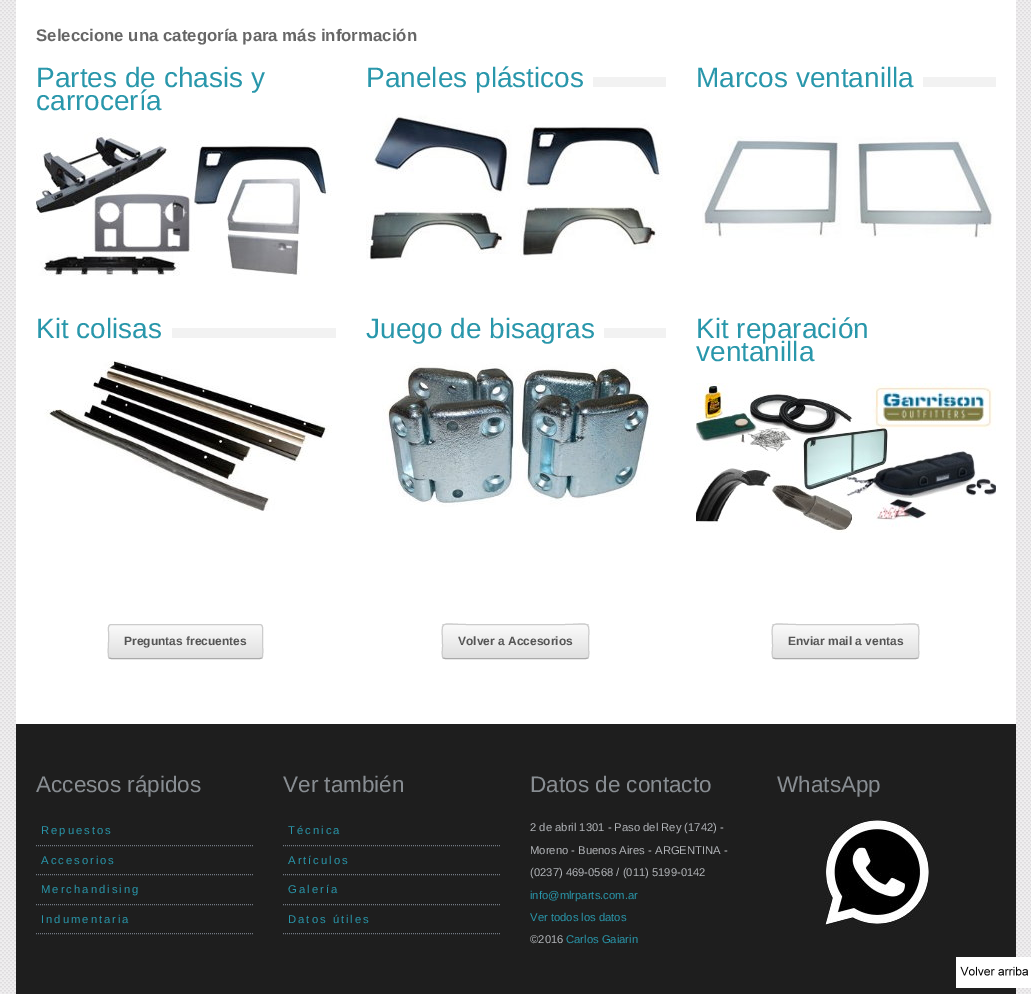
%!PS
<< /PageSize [1031 994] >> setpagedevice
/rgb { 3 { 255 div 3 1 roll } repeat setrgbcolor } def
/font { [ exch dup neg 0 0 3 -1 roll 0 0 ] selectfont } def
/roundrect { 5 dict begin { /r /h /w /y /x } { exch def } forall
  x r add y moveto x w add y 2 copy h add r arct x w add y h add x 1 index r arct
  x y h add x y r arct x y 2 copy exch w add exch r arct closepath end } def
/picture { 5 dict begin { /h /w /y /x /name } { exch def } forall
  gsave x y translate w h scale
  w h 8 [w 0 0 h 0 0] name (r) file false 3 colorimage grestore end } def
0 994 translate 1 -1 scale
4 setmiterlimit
255 255 255 rgb
0 0 1031 994 rectfill
(img/1.rgb) 0 0 1031 994 picture
16 0 1000 724 rectfill
(img/2.rgb) 36 132 296 144 picture
242 242 242 rgb
593 77 73 10 rectfill
(img/3.rgb) 366 114 297 146 picture
923 77 73 10 rectfill
(img/4.rgb) 702 136 292 102 picture
172 328 164 10 rectfill
(img/5.rgb) 44 361 288 150 picture
604 328 62 10 rectfill
(img/6.rgb) 382 362 272 145 picture
(img/7.rgb) 696 383 300 150 picture
gsave
108 624 155 35 3 roundrect clip newpath
gsave 108 625 moveto 263 625 lineto 263 658 lineto 108 658 lineto closepath clip newpath
<< /ShadingType 2 /ColorSpace /DeviceRGB /Coords [186 625 186 658] /Extend [true true] /Function << /FunctionType 2 /Domain [0 1] /C0 [0.98 0.98 0.98] /C1 [0.878 0.878 0.878] /N 1 >> >> shfill grestore
grestore
170 170 170 rgb
262 658 moveto 260 658.5 lineto 111 658.5 lineto 109 658 lineto stroke
204 204 204 rgb
109 658 moveto 107.5 656 108.5 644.5 108.5 641.5 curveto 108.5 632 lineto 108.5 630 107.5 624.5 111 624.5 curveto 260 624.5 lineto 263.5 624.5 262.5 630 262.5 632 curveto 262.5 641.5 lineto 262.5 644.5 263.5 656 262 658 curveto stroke
gsave
442 624 147 35 3 roundrect clip newpath
gsave 442 624 moveto 589 624 lineto 589 625 lineto 442 625 lineto closepath clip newpath
<< /ShadingType 2 /ColorSpace /DeviceRGB /Coords [516 592 516 625] /Extend [true true] /Function << /FunctionType 2 /Domain [0 1] /C0 [0.98 0.98 0.98] /C1 [0.878 0.878 0.878] /N 1 >> >> shfill grestore
gsave 442 625 moveto 589 625 lineto 589 658 lineto 442 658 lineto closepath clip newpath
<< /ShadingType 2 /ColorSpace /DeviceRGB /Coords [516 625 516 658] /Extend [true true] /Function << /FunctionType 2 /Domain [0 1] /C0 [0.98 0.98 0.98] /C1 [0.878 0.878 0.878] /N 1 >> >> shfill grestore
grestore
170 170 170 rgb
588 658 moveto 586 658.5 lineto 445 658.5 lineto 443 658 lineto stroke
204 204 204 rgb
443 658 moveto 441.5 656 442.5 648.5 442.5 646.5 curveto 442.5 618 437 624.5 468.5 624.5 curveto 562.5 624.5 lineto 594 624.5 588.5 618 588.5 646.5 curveto 588.5 648.5 589.5 656 588 658 curveto stroke
gsave
772 624 147 35 3 roundrect clip newpath
gsave 772 624 moveto 919 624 lineto 919 625 lineto 772 625 lineto closepath clip newpath
<< /ShadingType 2 /ColorSpace /DeviceRGB /Coords [846 592 846 625] /Extend [true true] /Function << /FunctionType 2 /Domain [0 1] /C0 [0.98 0.98 0.98] /C1 [0.878 0.878 0.878] /N 1 >> >> shfill grestore
gsave 772 625 moveto 919 625 lineto 919 658 lineto 772 658 lineto closepath clip newpath
<< /ShadingType 2 /ColorSpace /DeviceRGB /Coords [846 625 846 658] /Extend [true true] /Function << /FunctionType 2 /Domain [0 1] /C0 [0.98 0.98 0.98] /C1 [0.878 0.878 0.878] /N 1 >> >> shfill grestore
grestore
170 170 170 rgb
918 658 moveto 916 658.5 lineto 775 658.5 lineto 773 658 lineto stroke
204 204 204 rgb
773 658 moveto 771.5 656 772.5 648.5 772.5 646.5 curveto 772.5 618 767 624.5 798.5 624.5 curveto 892.5 624.5 lineto 924 624.5 918.5 618 918.5 646.5 curveto 918.5 648.5 919.5 656 918 658 curveto stroke
30 30 30 rgb
16 724 1000 270 rectfill
115 122 132 rgb
[1 1] 0 setdash
36 845.5 moveto 253 845.5 lineto stroke
36 874.5 moveto 253 874.5 lineto stroke
36 904.5 moveto 253 904.5 lineto stroke
36 933.5 moveto 253 933.5 lineto stroke
283 845.5 moveto 500 845.5 lineto stroke
283 874.5 moveto 500 874.5 lineto stroke
283 904.5 moveto 500 904.5 lineto stroke
283 933.5 moveto 500 933.5 lineto stroke
(img/8.rgb) 825 817 104 111 picture
(img/9.rgb) 956 957 75 31 picture
/LiberationSans-Bold 16.8 font
102 102 102 rgb
36 41 moveto (Seleccione una categoría para más información) show
/LiberationSans-Regular 28 font
41 151 171 rgb
[
  [(Partes de chasis y) 36 87]
  [(carrocería) 36 110]
  [(Paneles plásticos) 366 87]
  [(Marcos ventanilla) 696 87]
  [(Kit colisas) 36 338]
  [(Juego de bisagras) 366 338]
  [(Kit reparación) 696 338]
  [(ventanilla) 696 361]
] { aload pop moveto show } forall
/LiberationSans-Bold 12 font
85 85 85 rgb
[
  [(Preguntas frecuentes) 124 645]
  [(Volver a Accesorios) 458 645]
  [(Enviar mail a ventas) 788 645]
] { aload pop moveto show } forall
/LiberationSans-Regular 22.5 font
136 141 146 rgb
36 792 moveto (Accesos rápidos) show
/LiberationSans-Regular 11.25 font
41 151 171 rgb
41 834 moveto 2 0 (Repuestos) ashow
41 864 moveto 2 0 (Accesorios) ashow
41 893 moveto 2 0 (Merchandising) ashow
41 923 moveto 2 0 (Indumentaria) ashow
/LiberationSans-Regular 22.5 font
136 141 146 rgb
283 792 moveto (Ver también) show
/LiberationSans-Regular 11.25 font
41 151 171 rgb
288 834 moveto 2 0 (Técnica) ashow
288 864 moveto 2 0 (Artículos) ashow
288 893 moveto 2 0 (Galería) ashow
288 923 moveto 2 0 (Datos útiles) ashow
/LiberationSans-Regular 22.5 font
136 141 146 rgb
530 792 moveto (Datos de contacto) show
/LiberationSans-Regular 11.25 font
178 181 185 rgb
[
  [(2 de abril 1301 - Paso del Rey \(1742\) -) 530 831]
  [(Moreno - Buenos Aires - ARGENTINA -) 530 854]
  [(\(0237\) 469-0568 / \(011\) 5199-0142) 530 876]
] { aload pop moveto show } forall
41 151 171 rgb
530 899 moveto (info@mlrparts.com.ar) show
530 921 moveto (Ver todos los datos) show
178 181 185 rgb
530 943 moveto (©2016) show
41 151 171 rgb
566 943 moveto (Carlos Gaiarin) show
/LiberationSans-Regular 22.5 font
136 141 146 rgb
777 792 moveto (WhatsApp) show
showpage
